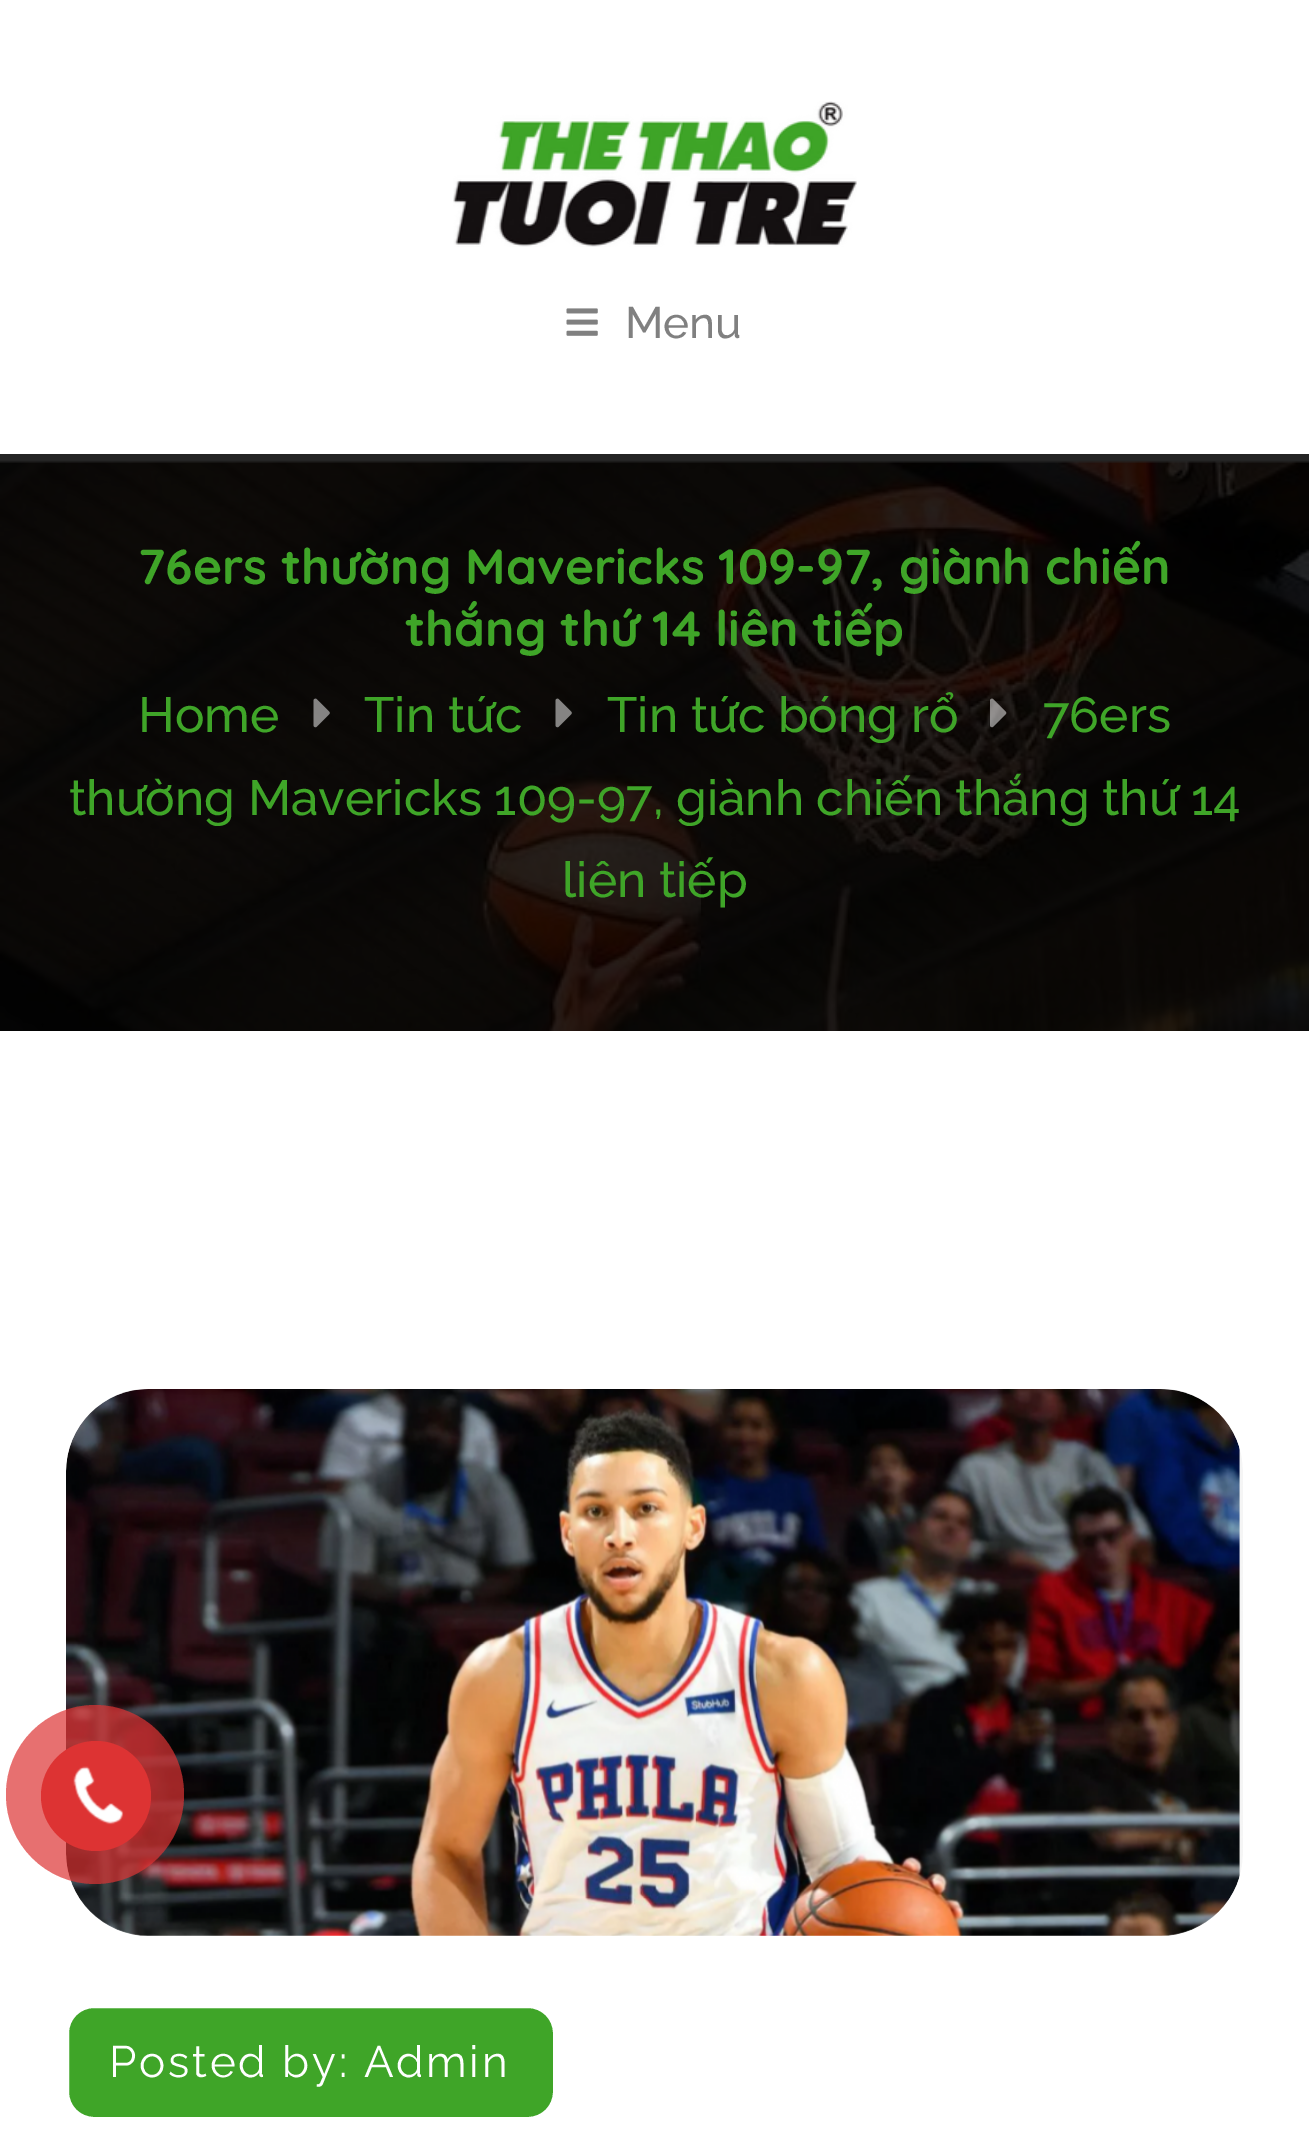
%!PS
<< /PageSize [1309 2130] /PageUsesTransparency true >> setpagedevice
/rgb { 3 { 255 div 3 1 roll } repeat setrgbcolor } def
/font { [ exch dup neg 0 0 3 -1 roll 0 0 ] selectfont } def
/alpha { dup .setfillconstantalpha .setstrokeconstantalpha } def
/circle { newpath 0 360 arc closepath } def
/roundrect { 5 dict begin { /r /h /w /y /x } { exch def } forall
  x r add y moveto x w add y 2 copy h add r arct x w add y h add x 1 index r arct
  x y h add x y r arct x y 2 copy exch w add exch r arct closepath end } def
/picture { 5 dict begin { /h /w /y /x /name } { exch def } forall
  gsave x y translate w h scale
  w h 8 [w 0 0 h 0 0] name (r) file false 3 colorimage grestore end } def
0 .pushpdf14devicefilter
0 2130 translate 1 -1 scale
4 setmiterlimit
255 255 255 rgb
0 0 1309 2130 rectfill
(img/1.rgb) 453 101 404 146 picture
(img/2.rgb) 566 308 32 28 picture
36 36 36 rgb
0 454 1309 9 rectfill
(img/3.rgb) 0 461 1309 570 picture
(img/4.rgb) 313 698 17 30 picture
(img/5.rgb) 555 698 17 30 picture
(img/6.rgb) 990 698 17 30 picture
(img/7.rgb) 66 1389 1177 547 picture
63 165 40 rgb
67.5 2006.5 487 112 26.5 roundrect gsave fill grestore
255 255 255 rgb
3 setlinewidth
stroke
0.7 alpha
221 51 51 rgb
6 1705 178 179 89 roundrect fill
1 alpha
96 1796 55 circle fill
(img/8.rgb) 73 1766 51 59 picture
/Raleway-Thin 44 font
128 128 128 rgb
625 338 moveto (Menu) show
/Quicksand-Bold 49.5 font
63 165 40 rgb
138 584 moveto (76ers thường Mavericks 109-97, giành chiến) show
405 646 moveto (thắng thứ 14 liên tiếp) show
/Raleway-Thin 49.5 font
[
  [(Home) 138 732]
  [(Tin tức) 364 732]
  [(Tin tức bóng rổ) 607 732]
  [(76ers) 1043 732]
  [(thường Mavericks 109-97, giành chiến thắng thứ 14) 69 815]
  [(liên tiếp) 562 897]
] { aload pop moveto show } forall
/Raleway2-Thin 44 font
255 255 255 rgb
109 2077 moveto 2.75 0 (Posted by: Admin) ashow
.poppdf14devicefilter showpage
